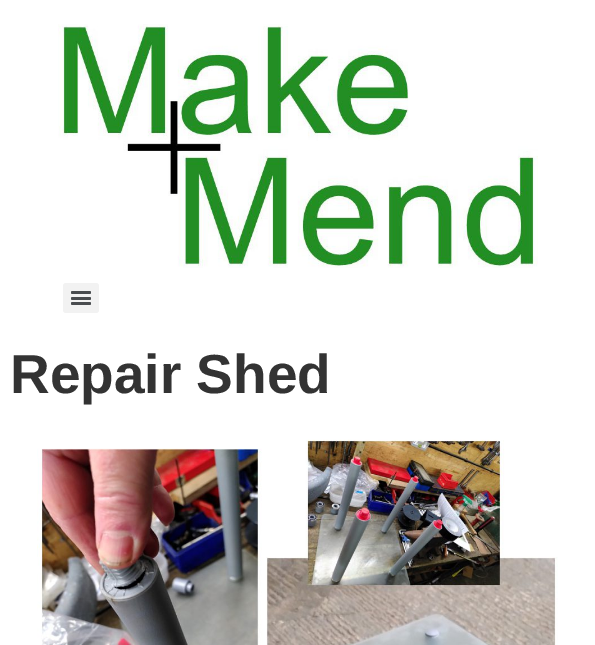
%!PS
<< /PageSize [595 645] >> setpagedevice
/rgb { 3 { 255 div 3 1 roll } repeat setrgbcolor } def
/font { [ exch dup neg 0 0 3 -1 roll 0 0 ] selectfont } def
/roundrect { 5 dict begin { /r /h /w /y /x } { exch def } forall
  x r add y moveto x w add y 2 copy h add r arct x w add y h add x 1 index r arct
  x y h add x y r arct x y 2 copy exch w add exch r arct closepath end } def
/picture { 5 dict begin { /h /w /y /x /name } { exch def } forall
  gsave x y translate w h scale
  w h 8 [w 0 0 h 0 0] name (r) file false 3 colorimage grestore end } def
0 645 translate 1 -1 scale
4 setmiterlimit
255 255 255 rgb
0 0 595 645 rectfill
(img/1.rgb) 58 24 480 244 picture
242 242 242 rgb
63 283 36 30 3 roundrect fill
73 76 79 rgb
71 297 20 3 1.5 roundrect fill
71 291 20 3 1.5 roundrect fill
71 302 20 3 1.5 roundrect fill
(img/2.rgb) 37 439 521 206 picture
/LiberationSans-Bold 55 font
51 51 51 rgb
10 393 moveto (Repair Shed) show
showpage
